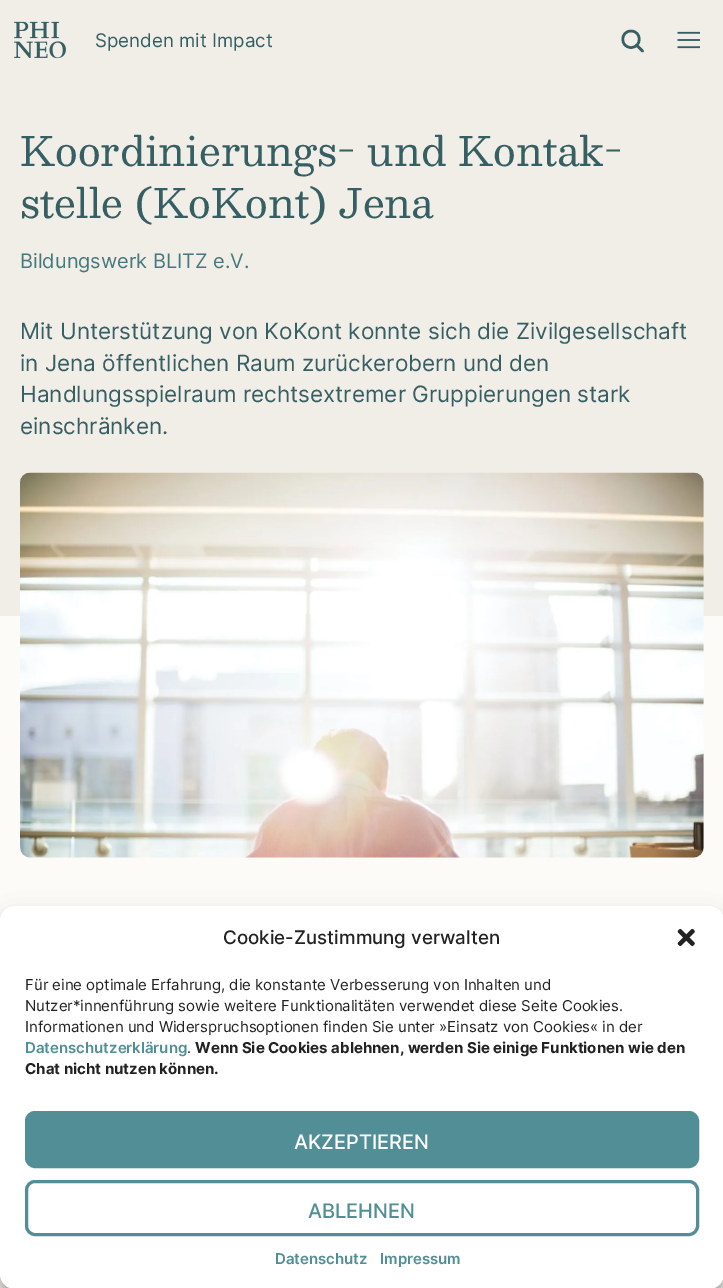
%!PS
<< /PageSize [723 1288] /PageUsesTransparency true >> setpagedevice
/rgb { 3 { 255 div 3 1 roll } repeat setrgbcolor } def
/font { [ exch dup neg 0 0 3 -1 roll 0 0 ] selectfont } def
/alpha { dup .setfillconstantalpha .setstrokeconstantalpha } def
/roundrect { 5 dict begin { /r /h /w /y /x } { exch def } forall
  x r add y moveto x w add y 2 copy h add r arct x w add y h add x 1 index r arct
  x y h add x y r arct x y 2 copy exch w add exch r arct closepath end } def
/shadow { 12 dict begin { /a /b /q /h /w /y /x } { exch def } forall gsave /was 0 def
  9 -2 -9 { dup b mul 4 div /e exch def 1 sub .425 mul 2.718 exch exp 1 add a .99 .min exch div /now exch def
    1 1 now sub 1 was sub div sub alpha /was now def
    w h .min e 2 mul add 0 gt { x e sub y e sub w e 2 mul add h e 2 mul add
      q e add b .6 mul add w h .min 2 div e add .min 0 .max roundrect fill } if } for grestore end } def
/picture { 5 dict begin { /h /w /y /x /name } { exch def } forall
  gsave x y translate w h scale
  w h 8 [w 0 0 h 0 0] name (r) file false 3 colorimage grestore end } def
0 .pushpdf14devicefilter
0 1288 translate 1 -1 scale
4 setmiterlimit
253 251 247 rgb
0 0 723 1288 rectfill
241 238 232 rgb
0 0 723 616 rectfill
(img/1.rgb) 14 21 52 38 picture
54 95 99 rgb
2.5 setlinewidth
1 setlinecap
1 setlinejoin
631 47.5 moveto 642 47.5 642 31 631 31 curveto 620 31 620 47.5 631 47.5 curveto closepath 642.5 51 moveto 636.5 45 lineto stroke
(img/2.rgb) 677 31 23 18 picture
(img/3.rgb) 20 472 684 386 picture
0 0 0 rgb
0 914 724 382 15 4 0.23 shadow
0 919 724 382 15 12.5 0.19 shadow
255 255 255 rgb
0 906 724 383 15 roundrect fill
(img/4.rgb) 677 928 18 19 picture
81 142 149 rgb
26.5 1112.5 671 54 8.5 roundrect gsave fill grestore
3 setlinewidth
0 setlinecap
0 setlinejoin
stroke
26.5 1181.5 671 53 8.5 roundrect stroke
/Inter-Regular 18.75 font
54 95 99 rgb
95 47 moveto (Spenden mit Impact) show
/Besley-Regular 40 font
20 166 moveto (Koordinierungs- und Kontak-) show
20 218 moveto (stelle \(KoKont\) Jena) show
/Inter-Regular 20 font
69 121 126 rgb
20 268 moveto (Bildungswerk BLITZ e.V.) show
/Inter-Regular 22.5 font
54 95 99 rgb
[
  [(Mit Unterstützung von KoKont konnte sich die Zivilgesellschaft) 20 339]
  [(in Jena öffentlichen Raum zurückerobern und den) 20 371]
  [(Handlungsspielraum rechtsextremer Gruppierungen stark) 20 402]
  [(einschränken.) 20 434]
] { aload pop moveto show } forall
/Inter-Medium 18.75 font
34 34 34 rgb
223 944 moveto (Cookie-Zustimmung verwalten) show
/Inter-Regular 15 font
[
  [(Für eine optimale Erfahrung, die konstante Verbesserung von Inhalten und) 25 990]
  [(Nutzer*innenführung sowie weitere Funktionalitäten verwendet diese Seite Cookies.) 25 1011]
  [(Informationen und Widerspruchsoptionen finden Sie unter »Einsatz von Cookies« in der) 25 1032]
] { aload pop moveto show } forall
/Inter-SemiBold 15 font
81 142 149 rgb
25 1053 moveto (Datenschutzerklärung) show
/Inter-Regular 15 font
34 34 34 rgb
187 1053 moveto (.) show
/Inter-Bold 15 font
195 1053 moveto (Wenn Sie Cookies ablehnen, werden Sie einige Funktionen wie den) show
25 1074 moveto (Chat nicht nutzen können.) show
/Inter-Medium 20 font
255 255 255 rgb
294 1149 moveto (AKZEPTIEREN) show
81 142 149 rgb
308 1218 moveto (ABLEHNEN) show
/Inter-SemiBold 15 font
275 1264 moveto (Datenschutz) show
380 1264 moveto (Impressum) show
.poppdf14devicefilter showpage
